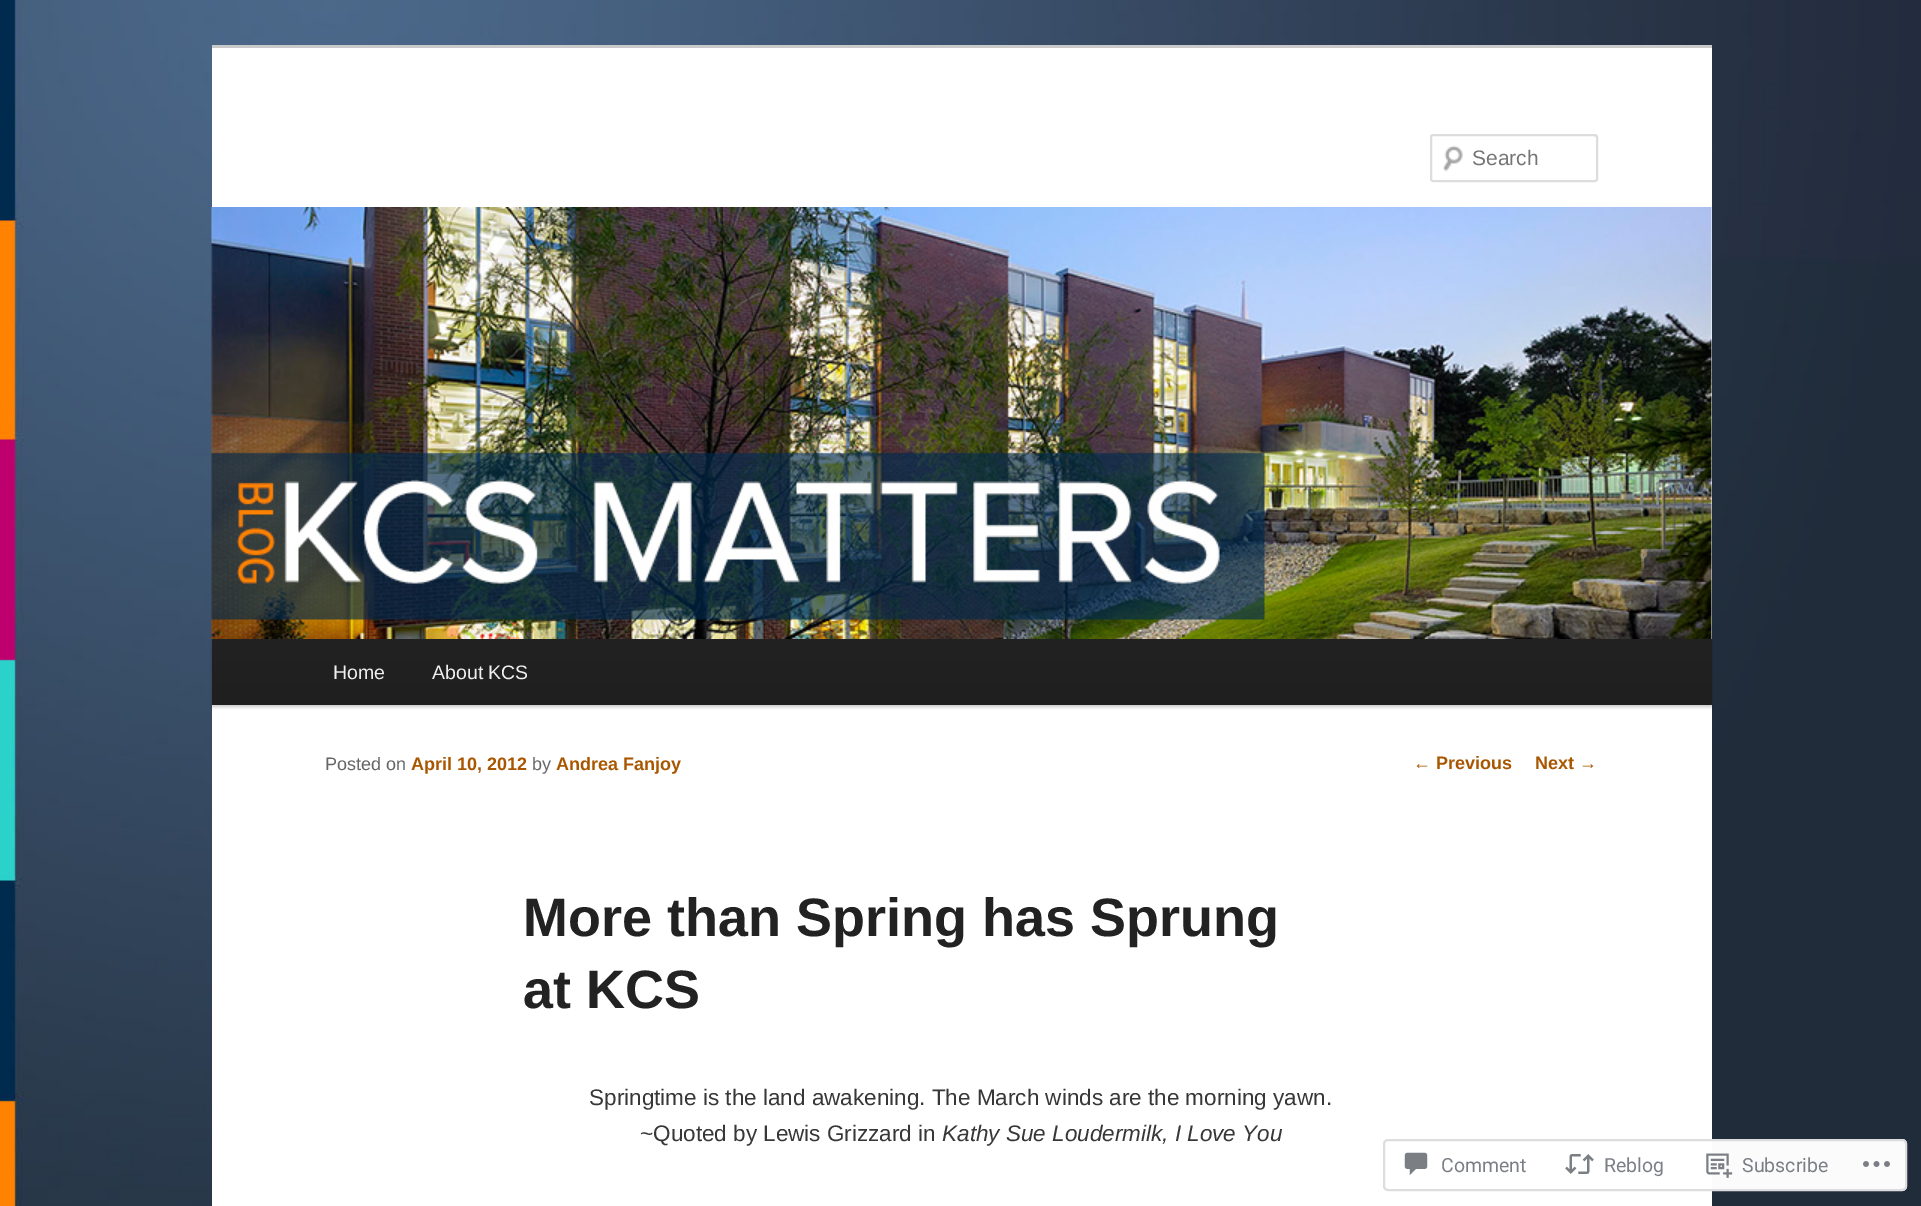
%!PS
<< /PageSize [1921 1206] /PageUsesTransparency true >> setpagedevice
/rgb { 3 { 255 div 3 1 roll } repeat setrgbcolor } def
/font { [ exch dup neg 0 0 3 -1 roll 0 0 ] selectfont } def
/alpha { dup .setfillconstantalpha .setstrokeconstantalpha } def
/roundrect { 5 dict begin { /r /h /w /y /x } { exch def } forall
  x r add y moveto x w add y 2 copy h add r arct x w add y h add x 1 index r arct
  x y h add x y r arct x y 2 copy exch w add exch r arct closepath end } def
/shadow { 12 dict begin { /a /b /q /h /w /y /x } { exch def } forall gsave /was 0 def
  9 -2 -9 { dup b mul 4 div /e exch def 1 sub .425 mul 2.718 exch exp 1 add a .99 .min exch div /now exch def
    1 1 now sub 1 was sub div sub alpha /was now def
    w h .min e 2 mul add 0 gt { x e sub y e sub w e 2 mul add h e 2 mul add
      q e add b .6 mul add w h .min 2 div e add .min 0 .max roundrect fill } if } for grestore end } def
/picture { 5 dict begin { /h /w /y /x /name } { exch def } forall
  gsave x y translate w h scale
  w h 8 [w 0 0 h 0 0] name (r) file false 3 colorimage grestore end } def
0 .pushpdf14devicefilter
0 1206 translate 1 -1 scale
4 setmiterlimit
255 255 255 rgb
0 0 1921 1206 rectfill
(img/1.rgb) 0 0 1921 1206 picture
212 48 1500 1158 rectfill
201 201 201 rgb
212 45 1500 3 rectfill
(img/2.rgb) 1443 145 20 27 picture
230 230 230 rgb
1432 136 moveto 1594 136 lineto 1595 136 1596 137 1596 138 curveto 1596 136 lineto 1596 136 1595 135 1594 135 curveto 1432 135 lineto 1432 135 1431 136 1431 136 curveto 1431 138 lineto closepath fill
221 221 221 rgb
2 setlinewidth
1431 135 166 46 2 roundrect stroke
0 0 0 rgb
212 641 1500 66 0 1.5 0.2 shadow
(img/3.rgb) 211 207 1501 432 picture
gsave 212 639 moveto 1712 639 lineto 1712 705 lineto 212 705 lineto closepath clip newpath
<< /ShadingType 2 /ColorSpace /DeviceRGB /Coords [962 639 962 705] /Extend [true true] /Function << /FunctionType 2 /Domain [0 1] /C0 [0.133 0.133 0.133] /C1 [0.122 0.122 0.122] /N 1 >> >> shfill grestore
0.98 alpha
255 255 255 rgb
1383 1139 524 52 5 roundrect fill
220 220 222 rgb
1384 1140 522 50 4 roundrect stroke
1 alpha
(img/4.rgb) 1404 1152 24 24 picture
(img/5.rgb) 1565 1154 29 20 picture
(img/6.rgb) 1706 1153 27 25 picture
(img/7.rgb) 1863 1161 27 6 picture
/LiberationSans-Regular 21 font
117 117 117 rgb
1472 165 moveto (Search) show
/LiberationSans-Regular 19.5 font
238 238 238 rgb
333 679 moveto (Home) show
432 679 moveto (About KCS) show
/LiberationSans-Regular 18 font
102 102 102 rgb
325 770 moveto (Posted on) show
/LiberationSans-Bold 18 font
168 86 0 rgb
411 770 moveto (April 10, 2012) show
/LiberationSans-Regular 18 font
102 102 102 rgb
532 770 moveto (by) show
/LiberationSans-Bold 18 font
168 86 0 rgb
556 770 moveto (Andrea Fanjoy) show
/LiberationSans-Bold 54 font
34 34 34 rgb
523 936 moveto (More than Spring has Sprung) show
523 1008 moveto (at KCS) show
/LiberationSans-Regular 22.5 font
55 55 55 rgb
589 1105 moveto (Springtime is the land awakening. The March winds are the morning yawn.) show
640 1141 moveto (~Quoted by Lewis Grizzard in) show
/LiberationSans-Italic 22.5 font
942 1141 moveto (Kathy Sue Loudermilk, I Love You) show
/LiberationSans-Regular 18 font
168 86 0 rgb
1413 769 moveto (←) show
/LiberationSans-Bold 18 font
1436 769 moveto (Previous) show
1535 769 moveto (Next) show
/LiberationSans-Regular 18 font
1579 769 moveto (→) show
/Roboto-Regular 19.5 font
123 127 133 rgb
[
  [(Comment) 1441 1172]
  [(Reblog) 1604 1172]
  [(Subscribe) 1742 1172]
] { aload pop moveto show } forall
.poppdf14devicefilter showpage
